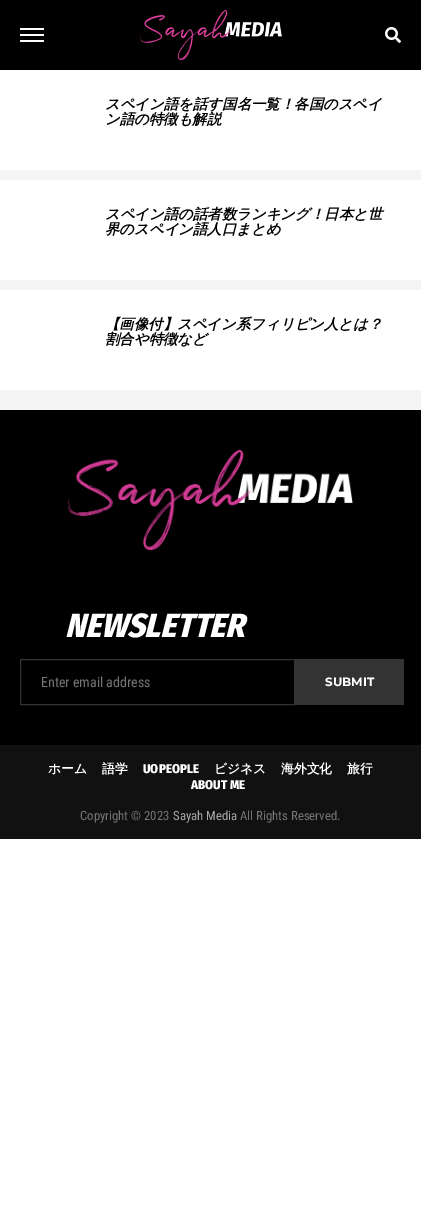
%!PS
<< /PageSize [421 1229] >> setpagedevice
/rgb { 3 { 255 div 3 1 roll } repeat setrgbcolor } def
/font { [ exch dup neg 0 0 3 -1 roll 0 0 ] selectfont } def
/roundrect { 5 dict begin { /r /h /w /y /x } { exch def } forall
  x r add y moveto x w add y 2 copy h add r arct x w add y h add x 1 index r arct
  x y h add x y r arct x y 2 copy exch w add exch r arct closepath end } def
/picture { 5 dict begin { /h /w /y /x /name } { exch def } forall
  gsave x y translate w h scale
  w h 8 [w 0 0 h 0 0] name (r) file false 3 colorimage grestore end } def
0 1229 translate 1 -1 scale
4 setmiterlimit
255 255 255 rgb
0 0 421 1229 rectfill
0 0 0 rgb
0 0 421 70 rectfill
255 255 255 rgb
20 28 24 2 1 roundrect fill
20 34 24 2 1 roundrect fill
20 40 24 2 1 roundrect fill
(img/1.rgb) 140 10 142 50 picture
(img/2.rgb) 385 27 16 16 picture
[
  [0 170 421 240 245 245 245]
  [0 180 421 100 255 255 255]
  [0 290 421 100 255 255 255]
  [0 410 421 335 0 0 0]
] { aload pop rgb rectfill } forall
(img/3.rgb) 68 450 285 100 picture
51 51 51 rgb
20.5 659.5 274 45 rectstroke
295 659 109 46 rectfill
17 17 17 rgb
0 745 421 94 rectfill
/WenQuanYiZenHei-BoldItalic 14.4 font
0 0 0 rgb
[
  [(スペイン語を話す国名一覧！各国のスペイ) 105 109]
  [(ン語の特徴も解説) 105 124]
  [(スペイン語の話者数ランキング！日本と世) 105 219]
  [(界のスペイン語人口まとめ) 105 234]
  [(【画像付】スペイン系フィリピン人とは？) 105 329]
  [(割合や特徴など) 105 344]
] { aload pop moveto show } forall
/FiraSansCondensed-ExtraBoldItalic 33.5 font
255 255 255 rgb
65 637 moveto (NEWSLETTER) show
/RobotoCondensed-Regular 14 font
117 117 117 rgb
41 687 moveto (Enter email address) show
/Montserrat-Bold 12 font
255 255 255 rgb
325 686 moveto (SUBMIT) show
/WenQuanYiZenHei-Bold 12.75 font
48 773 moveto (ホーム) show
102 773 moveto (語学) show
/FiraSansCondensed-ExtraBold 12.75 font
143 773 moveto (UOPEOPLE) show
/WenQuanYiZenHei-Bold 12.75 font
[
  [(ビジネス) 214 773]
  [(海外文化) 281 773]
  [(旅行) 347 773]
] { aload pop moveto show } forall
/FiraSansCondensed-ExtraBold 12.75 font
191 789 moveto (ABOUT ME) show
/RobotoCondensed-Regular 12.75 font
117 117 117 rgb
80 820 moveto (Copyright © 2023) show
170 170 170 rgb
173 820 moveto (Sayah Media) show
117 117 117 rgb
240 820 moveto (All Rights Reserved.) show
showpage
